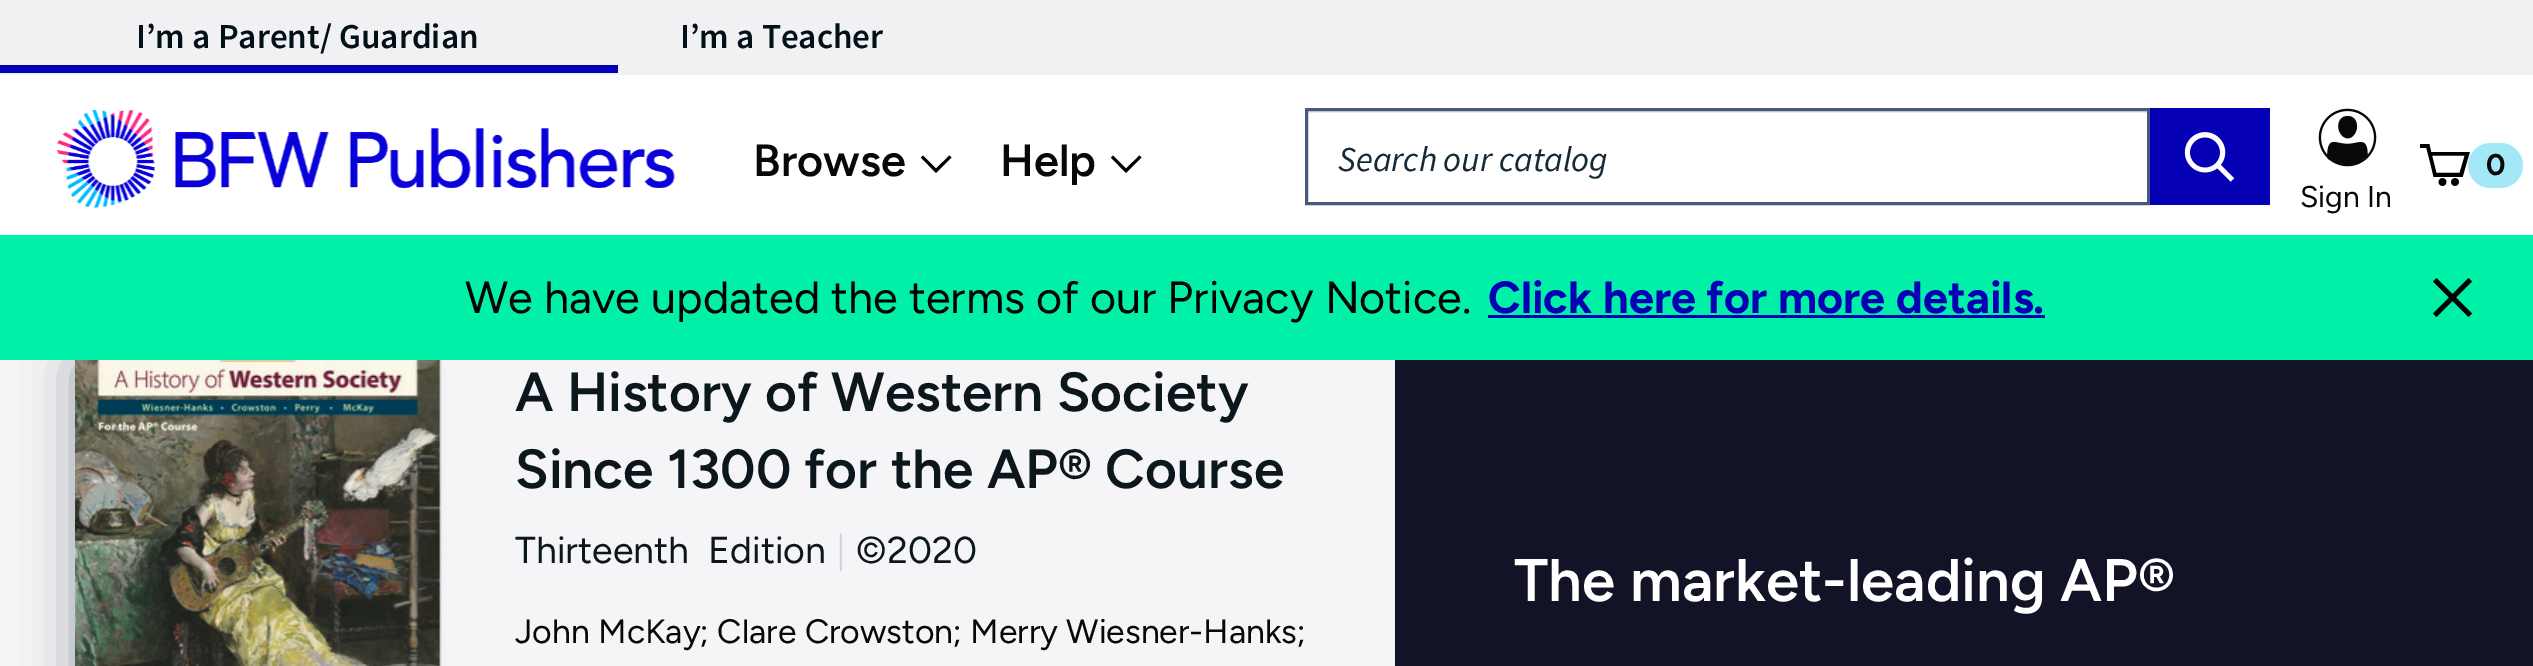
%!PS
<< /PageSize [2533 666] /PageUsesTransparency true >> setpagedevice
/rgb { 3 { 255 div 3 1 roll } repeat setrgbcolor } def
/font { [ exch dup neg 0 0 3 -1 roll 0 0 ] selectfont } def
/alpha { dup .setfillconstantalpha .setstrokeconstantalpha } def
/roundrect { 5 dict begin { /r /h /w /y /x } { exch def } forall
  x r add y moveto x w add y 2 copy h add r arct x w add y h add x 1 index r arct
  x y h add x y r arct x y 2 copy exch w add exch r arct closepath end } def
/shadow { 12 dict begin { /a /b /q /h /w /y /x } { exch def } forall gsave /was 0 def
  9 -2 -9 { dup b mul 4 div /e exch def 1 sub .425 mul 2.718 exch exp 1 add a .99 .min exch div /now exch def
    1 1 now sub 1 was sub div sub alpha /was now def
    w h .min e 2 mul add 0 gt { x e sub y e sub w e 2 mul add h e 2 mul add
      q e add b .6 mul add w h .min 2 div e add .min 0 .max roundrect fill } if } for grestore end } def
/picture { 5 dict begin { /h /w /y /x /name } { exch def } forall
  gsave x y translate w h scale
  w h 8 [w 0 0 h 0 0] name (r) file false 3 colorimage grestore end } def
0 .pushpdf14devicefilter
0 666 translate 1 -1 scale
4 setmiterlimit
245 244 246 rgb
0 0 2533 666 rectfill
[
  [0 0 2533 75 241 240 242]
  [0 65 618 8 6 0 180]
  [0 75 2533 160 255 255 255]
] { aload pop rgb rectfill } forall
(img/1.rgb) 57 110 618 98 picture
0 0 0 rgb
949.5 155.5 moveto 936 168.5 lineto 923 155.5 lineto 921 157.5 lineto 936 173 lineto 951.5 157.5 lineto closepath eofill
1139.5 155.5 moveto 1126 168.5 lineto 1113 155.5 lineto 1111 157.5 lineto 1126 173 lineto 1141.5 157.5 lineto closepath eofill
236 236 236 rgb
1308 111 840 2 rectfill
73 89 125 rgb
3 setlinewidth
1306.5 109.5 842 94 rectstroke
6 0 180 rgb
2150 108 120 97 rectfill
(img/2.rgb) 2184 132 51 50 picture
163 232 247 rgb
2468 143 55 45 22.5 roundrect fill
(img/3.rgb) 2420 144 50 42 picture
(img/4.rgb) 2318 108 59 59 picture
20 42 53 rgb
75 365 315 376 0 25 0.4 shadow
(img/5.rgb) 75 360 367 306 picture
[
  [1395 360 1138 306 19 19 39]
  [0 235 2533 125 0 240 168]
  [1488 315 557 3 6 0 180]
] { aload pop rgb rectfill } forall
0 0 0 rgb
2472 281.5 moveto 2468.5 278 lineto 2452.5 294 lineto 2436.5 278 lineto 2433 281.5 lineto 2449 297.5 lineto 2433 313.5 lineto 2436.5 317 lineto 2452.5 301 lineto 2468.5 317 lineto 2472 313.5 lineto 2456 297.5 lineto closepath fill
/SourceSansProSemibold-SemiBold 35 font
2 16 24 rgb
136 48 moveto (I’m a Parent/ Guardian) show
680 48 moveto (I’m a Teacher) show
/Figtree-SemiBold 45 font
8 8 8 rgb
753 176 moveto (Browse) show
1000 176 moveto (Help) show
/SourceSansPro-Italic 35 font
20 42 53 rgb
1338 171 moveto (Search our catalog) show
/Figtree-Bold 30 font
8 8 8 rgb
2486 175 moveto (0) show
/Figtree-Regular 30 font
2300 207 moveto (Sign In) show
/Figtree-SemiBold 55 font
11 23 29 rgb
515 411 moveto (A History of Western Society) show
515 488 moveto (Since 1300 for the AP® Course) show
/Figtree-Regular 37.5 font
515 563 moveto (Thirteenth  Edition) show
/Figtree-Light 37.5 font
207 216 220 rgb
836 563 moveto (|) show
/Figtree-Regular 37.5 font
11 23 29 rgb
856 563 moveto (©2020) show
/Figtree-Regular 33.75 font
8 8 8 rgb
515 643 moveto (John McKay; Clare Crowston; Merry Wiesner-Hanks;) show
/Figtree-SemiBold 60 font
255 255 255 rgb
1514 601 moveto (The market-leading AP®) show
/Figtree-Regular 45 font
0 0 0 rgb
465 313 moveto (We have updated the terms of our Privacy Notice.) show
/Figtree-Bold 45 font
6 0 180 rgb
1488 313 moveto (Click here for more details.) show
.poppdf14devicefilter showpage
